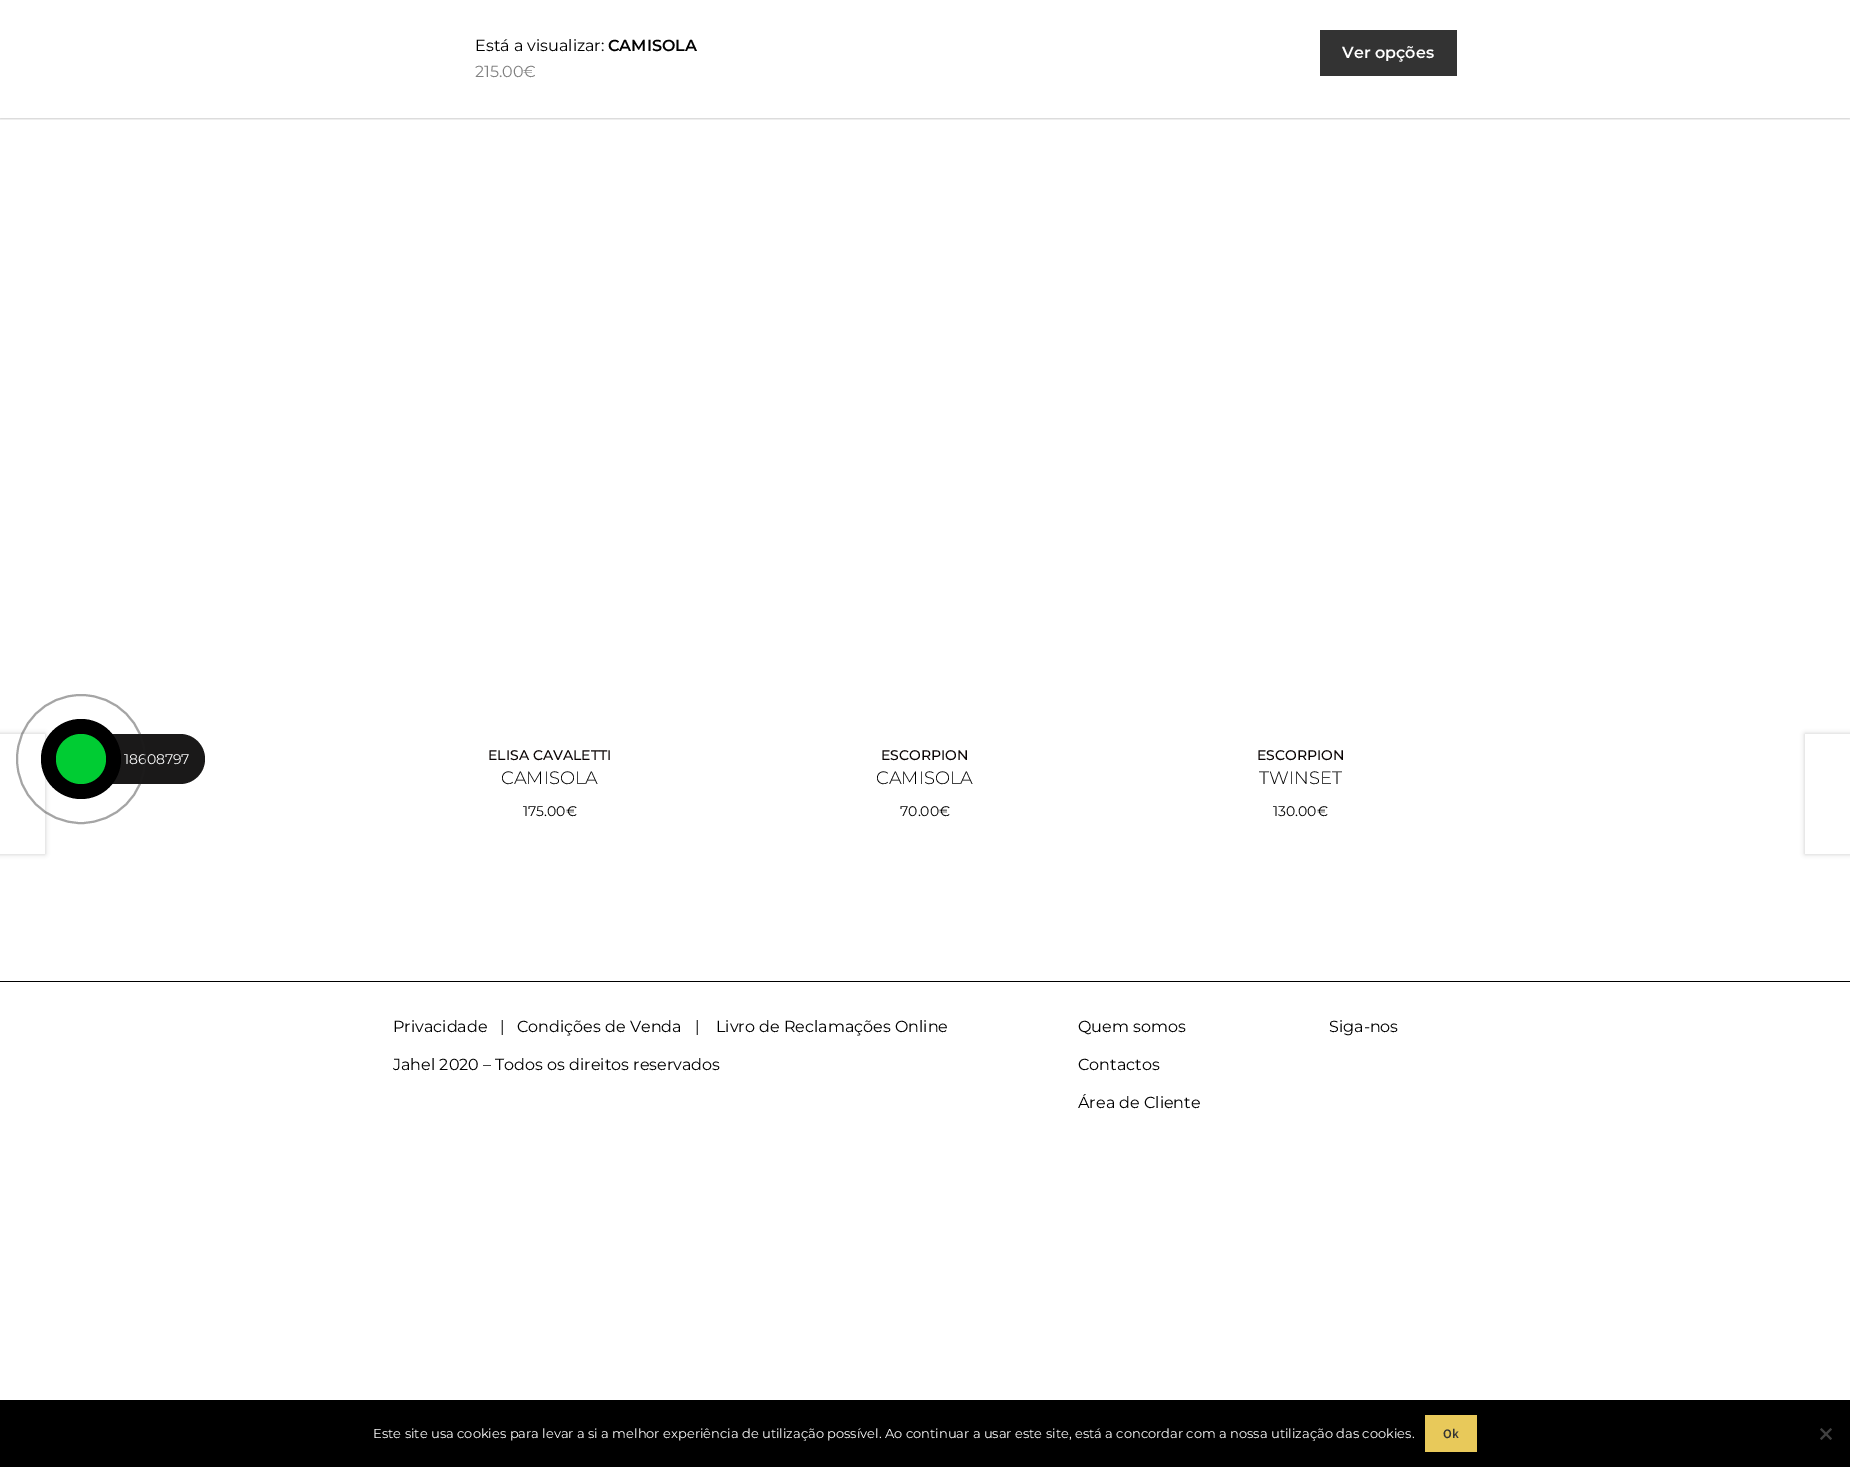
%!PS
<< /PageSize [1850 1467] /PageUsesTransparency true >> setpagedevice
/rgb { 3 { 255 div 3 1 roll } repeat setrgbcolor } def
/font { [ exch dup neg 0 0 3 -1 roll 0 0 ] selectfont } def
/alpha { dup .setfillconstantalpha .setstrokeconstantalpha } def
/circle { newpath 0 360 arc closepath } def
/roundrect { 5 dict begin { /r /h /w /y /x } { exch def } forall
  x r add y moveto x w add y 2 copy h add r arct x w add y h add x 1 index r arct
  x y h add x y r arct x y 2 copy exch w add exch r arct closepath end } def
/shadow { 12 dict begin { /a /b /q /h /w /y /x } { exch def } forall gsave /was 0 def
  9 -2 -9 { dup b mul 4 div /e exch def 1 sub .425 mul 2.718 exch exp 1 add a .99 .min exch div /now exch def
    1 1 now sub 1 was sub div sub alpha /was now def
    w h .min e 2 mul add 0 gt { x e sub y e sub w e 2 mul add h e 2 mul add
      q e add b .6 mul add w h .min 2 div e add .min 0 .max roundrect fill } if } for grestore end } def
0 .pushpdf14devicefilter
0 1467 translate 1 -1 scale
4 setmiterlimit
255 255 255 rgb
0 0 1850 1467 rectfill
26 25 25 rgb
56 734 149 50 25 roundrect fill
gsave
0 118 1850 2 rectclip
0 0 0 rgb
0 1 1850 118 0 1 0.2 shadow
grestore
51 51 51 rgb
1320 30 137 46 rectfill
gsave
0 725 moveto 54 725 lineto 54 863 lineto 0 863 lineto closepath -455 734 moveto 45 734 lineto 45 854 lineto -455 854 lineto closepath eoclip newpath
0 0 0 rgb
-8 734 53 120 0 2.5 0.2 shadow
grestore
gsave
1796 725 moveto 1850 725 lineto 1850 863 lineto 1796 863 lineto closepath 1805 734 moveto 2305 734 lineto 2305 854 lineto 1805 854 lineto closepath eoclip newpath
0 0 0 rgb
1805 734 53 120 0 2.5 0.2 shadow
grestore
[
  [0 981 1850 1 0 0 0]
  [0 1400 1850 67 0 0 0]
  [1425 1415 52 37 232 201 90]
] { aload pop rgb rectfill } forall
64 64 64 rgb
1830.5 1428 moveto 1832 1429.5 lineto 1821.5 1440 lineto 1820 1438.5 lineto closepath fill
1820 1429.5 moveto 1821.5 1428 lineto 1832 1438.5 lineto 1830.5 1440 lineto closepath fill
/Montserrat-Regular 14 font
255 255 255 rgb
124 764 moveto (18608797) show
0.4 alpha
30 30 30 rgb
2 setlinewidth
81 759 64 circle stroke
1 alpha
0 0 0 rgb
81 759 40 circle fill
0 204 51 rgb
81 759 25 circle fill
/Montserrat-Regular 16 font
0 0 0 rgb
475 51 moveto (Está a visualizar:) show
/Montserrat-SemiBold 16 font
608 51 moveto (CAMISOLA) show
/Montserrat-Regular 16 font
128 128 128 rgb
475 77 moveto (215.00€) show
/Montserrat-SemiBold 16 font
255 255 255 rgb
1342 58 moveto (Ver opções) show
/Montserrat-Medium 14 font
10 3 3 rgb
488 760 moveto (ELISA CAVALETTI) show
/Montserrat-Light 18 font
0 0 0 rgb
501 784 moveto (CAMISOLA) show
/Montserrat-Regular 14 font
523 816 moveto (175.00€) show
/Montserrat-Medium 14 font
10 3 3 rgb
881 760 moveto (ESCORPION) show
/Montserrat-Light 18 font
0 0 0 rgb
876 784 moveto (CAMISOLA) show
/Montserrat-Regular 14 font
900 816 moveto (70.00€) show
/Montserrat-Medium 14 font
10 3 3 rgb
1257 760 moveto (ESCORPION) show
/Montserrat-Light 18 font
0 0 0 rgb
1259 784 moveto (TWINSET) show
/Montserrat-Regular 14 font
1273 816 moveto (130.00€) show
/Montserrat-Regular 16 font
[
  [(Privacidade) 393 1032]
  [(|) 500 1032]
  [(Condições de Venda) 517 1032]
  [(|) 695 1032]
  [(Livro de Reclamações Online) 716 1032]
  [(Jahel 2020 – Todos os direitos reservados) 393 1070]
  [(Quem somos) 1078 1032]
  [(Contactos) 1078 1070]
  [(Área de Cliente) 1078 1108]
  [(Siga-nos) 1329 1032]
] { aload pop moveto show } forall
/Montserrat-Regular 13 font
255 255 255 rgb
373 1438 moveto (Este site usa cookies para levar a si a melhor experiência de utilização possível. Ao continuar a usar este site, está a concordar com a nossa utilização das cookies.) show
/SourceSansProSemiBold-SemiBold 13 font
51 51 51 rgb
1443 1438 moveto (Ok) show
.poppdf14devicefilter showpage
